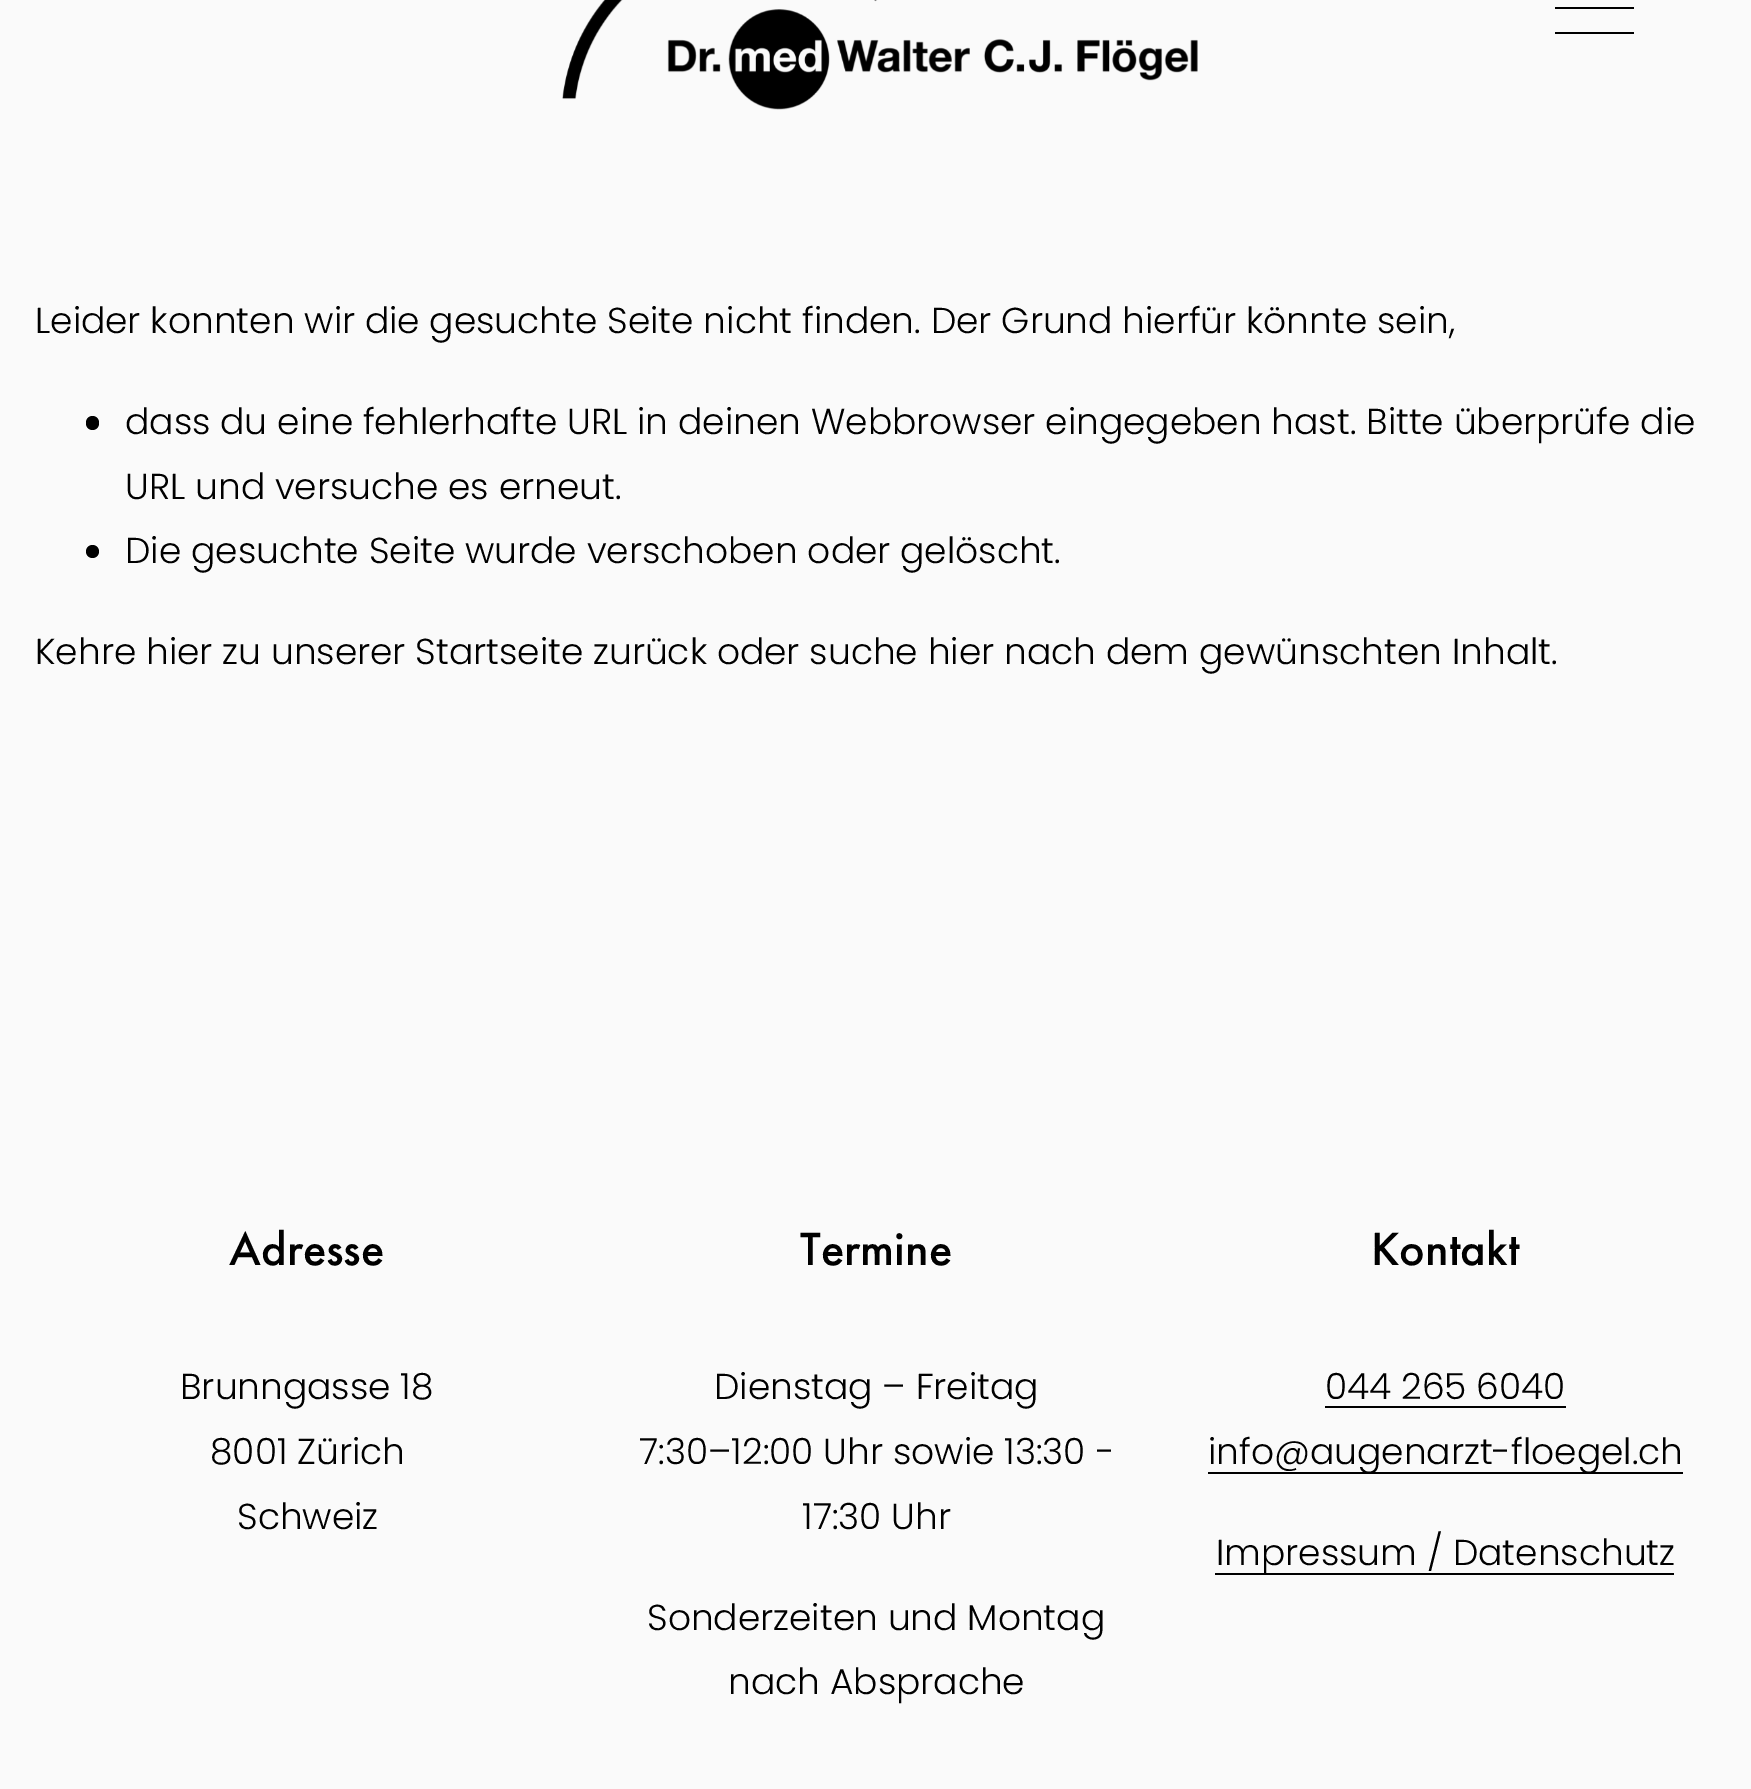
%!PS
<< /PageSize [1751 1789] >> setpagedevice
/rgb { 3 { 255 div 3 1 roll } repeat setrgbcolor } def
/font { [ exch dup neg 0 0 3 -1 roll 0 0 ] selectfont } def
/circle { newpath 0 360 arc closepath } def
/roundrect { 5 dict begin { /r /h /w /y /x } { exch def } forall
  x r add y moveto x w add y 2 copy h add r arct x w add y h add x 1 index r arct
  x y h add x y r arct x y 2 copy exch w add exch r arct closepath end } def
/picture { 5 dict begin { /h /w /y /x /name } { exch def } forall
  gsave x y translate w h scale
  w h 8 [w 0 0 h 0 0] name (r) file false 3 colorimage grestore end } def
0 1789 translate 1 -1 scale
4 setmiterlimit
250 250 250 rgb
0 0 1751 1789 rectfill
(img/1.rgb) 562 0 636 110 picture
0 0 0 rgb
1555 7 79 2 rectfill
1555 32 79 2 rectfill
86 416 13 14 6.5 roundrect fill
92.5 551.5 6.5 circle fill
[
  [1325 1406 241 2 0 0 0]
  [1208 1472 475 2 0 0 0]
  [1215 1573 459 2 0 0 0]
] { aload pop rgb rectfill } forall
/Poppins-Light 36 font
[
  [(Leider konnten wir die gesuchte Seite nicht finden. Der Grund hierfür könnte sein,) 35 333]
  [(dass du eine fehlerhafte URL in deinen Webbrowser eingegeben hast. Bitte überprüfe die) 125 434]
  [(URL und versuche es erneut.) 125 499]
  [(Die gesuchte Seite wurde verschoben oder gelöscht.) 125 563]
  [(Kehre hier zu unserer Startseite zurück oder suche hier nach dem gewünschten Inhalt.) 35 664]
] { aload pop moveto show } forall
/FuturaPT-Medium 48.5 font
229 1265 moveto (Adresse) show
/Poppins-Light 36 font
[
  [(Brunngasse 18) 180 1399]
  [(8001 Zürich) 210 1464]
  [(Schweiz) 237 1529]
] { aload pop moveto show } forall
/FuturaPT-Medium 48.5 font
800 1265 moveto (Termine) show
/Poppins-Light 36 font
[
  [(Dienstag – Freitag) 714 1399]
  [(7:30–12:00 Uhr sowie 13:30 -) 639 1464]
  [(17:30 Uhr) 802 1529]
  [(Sonderzeiten und Montag) 647 1630]
  [(nach Absprache) 728 1694]
] { aload pop moveto show } forall
/FuturaPT-Medium 48.5 font
1371 1265 moveto (Kontakt) show
/Poppins-Light 36 font
[
  [(044 265 6040) 1325 1399]
  [(info@augenarzt-floegel.ch) 1208 1464]
  [(Impressum / Datenschutz) 1216 1565]
] { aload pop moveto show } forall
showpage
